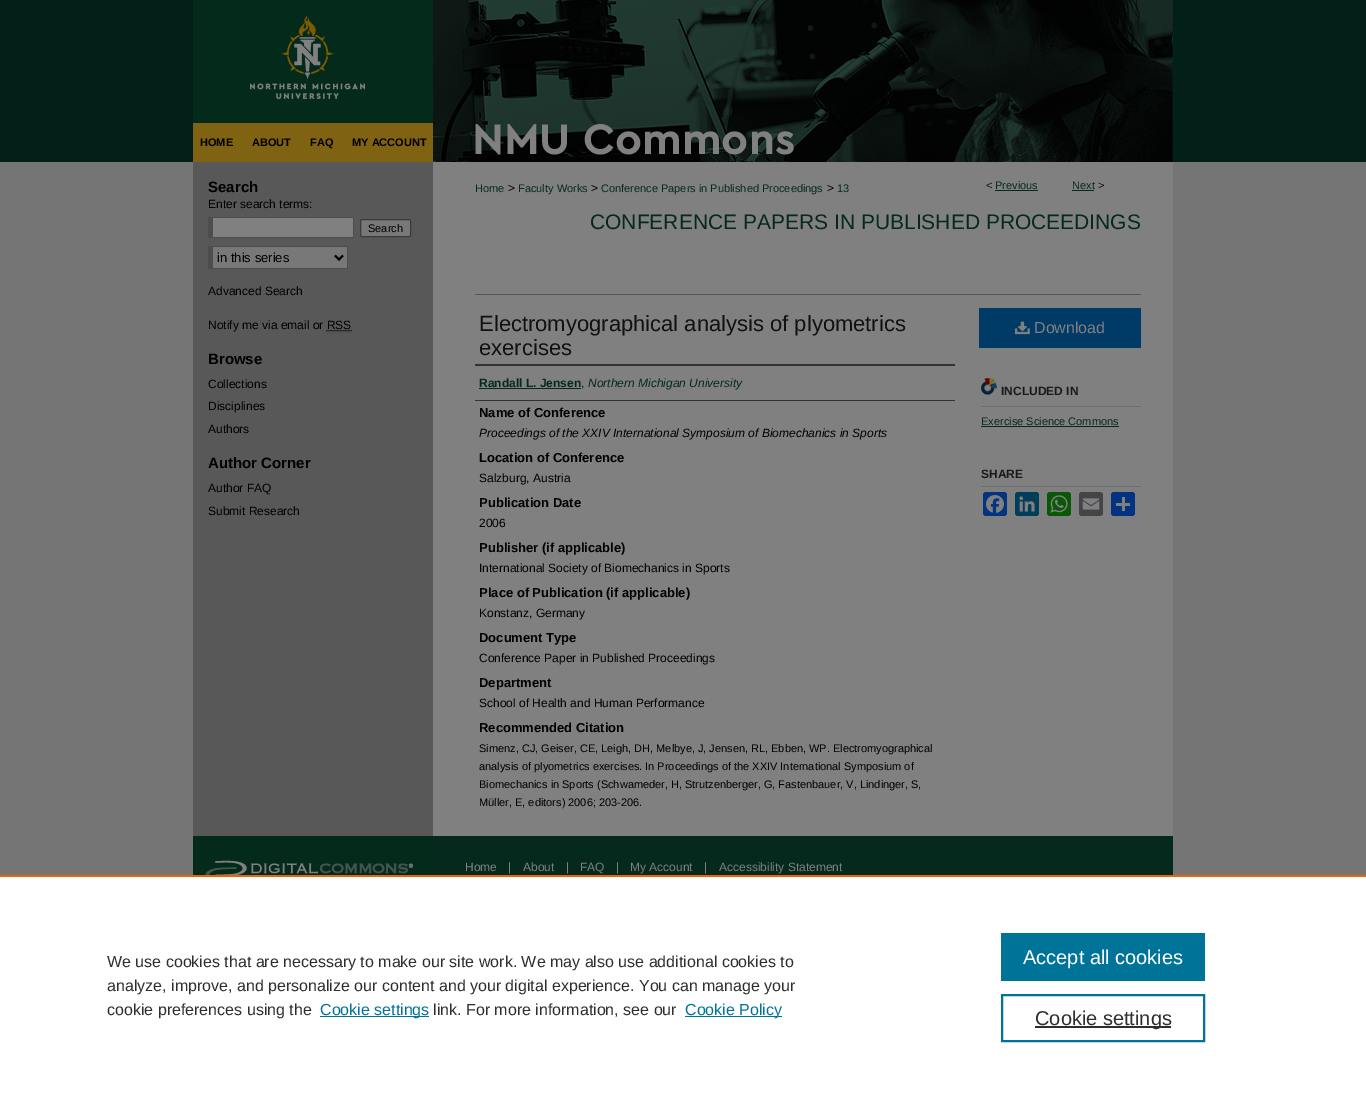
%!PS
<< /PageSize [1366 1095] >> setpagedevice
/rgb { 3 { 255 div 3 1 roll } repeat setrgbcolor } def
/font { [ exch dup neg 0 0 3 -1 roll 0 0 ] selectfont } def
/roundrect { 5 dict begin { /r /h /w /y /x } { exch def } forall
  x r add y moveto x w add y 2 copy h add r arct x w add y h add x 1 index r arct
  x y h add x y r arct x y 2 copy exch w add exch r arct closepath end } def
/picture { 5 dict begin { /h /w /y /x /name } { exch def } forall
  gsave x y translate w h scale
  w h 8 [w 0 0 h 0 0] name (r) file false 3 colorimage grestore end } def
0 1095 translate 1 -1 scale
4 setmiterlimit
117 117 117 rgb
0 0 1366 1095 rectfill
2 32 24 rgb
0 0 1366 162 rectfill
(img/1.rgb) 193 0 980 123 picture
(img/2.rgb) 250 16 115 83 picture
128 98 19 rgb
193 123 240 39 rectfill
(img/3.rgb) 433 123 740 39 picture
[
  [193 162 240 674 88 88 88]
  [433 162 740 674 128 128 128]
  [213 218 140 19 128 128 128]
  [208 217 146 1 77 77 77]
  [353 217 1 21 77 77 77]
  [208 237 146 1 77 77 77]
  [208 217 5 21 77 77 77]
] { aload pop rgb rectfill } forall
120 120 120 rgb
360.5 219.5 50 17 1.5 roundrect gsave fill grestore
59 59 59 rgb
stroke
[
  [213 247 134 21 120 120 120]
  [208 246 140 1 77 77 77]
  [347 246 1 23 77 77 77]
  [208 268 140 1 77 77 77]
  [208 246 5 23 77 77 77]
] { aload pop rgb rectfill } forall
0 0 0 rgb
2 setlinewidth
335 255.5 moveto 339 259.5 lineto 343 255.5 lineto stroke
1 setlinewidth
[1 1] 0 setdash
326.5 330.5 moveto 351.5 330.5 lineto stroke
77 77 77 rgb
327 332.5 moveto 351 332.5 lineto stroke
[
  [995 190 43 1 5 42 29]
  [1072 190 22 1 5 42 29]
  [475 294 666 1 85 85 85]
  [475 364 480 2 51 51 51]
  [475 400 480 1 51 51 51]
  [479 388 102 1 5 42 29]
  [979 308 162 40 0 58 102]
] { aload pop rgb rectfill } forall
(img/4.rgb) 1015 321 15 14 picture
(img/5.rgb) 981 378 16 17 picture
[
  [981 406 160 1 111 111 111]
  [981 426 138 1 5 42 29]
  [981 486 160 1 111 111 111]
] { aload pop rgb rectfill } forall
4 51 128 rgb
983 492 24 24 3 roundrect fill
(img/6.rgb) 986 495 18 18 picture
0 62 91 rgb
1015 492 24 24 3 roundrect fill
(img/7.rgb) 1019 496 16 16 picture
9 88 5 rgb
1047 492 24 24 3 roundrect fill
(img/8.rgb) 1050 495 18 18 picture
68 69 72 rgb
1079 492 24 24 3 roundrect fill
(img/9.rgb) 1082 498 18 12 picture
1 51 128 rgb
1111 492 24 24 3 roundrect fill
[
  [1122 497 3 14 128 128 128]
  [1116 503 14 3 128 128 128]
  [433 836 740 39 5 42 29]
] { aload pop rgb rectfill } forall
(img/10.rgb) 193 836 240 39 picture
[
  [0 877 1366 218 255 255 255]
  [0 875 1366 2 235 101 0]
  [320 1016 109 1 0 115 152]
  [685 1016 97 1 0 115 152]
  [1001 933 204 48 0 115 152]
] { aload pop rgb rectfill } forall
2 setlinewidth
[] 0 setdash
1002 995 202 46 rectstroke
46 46 46 rgb
1035 1026 136 2 rectfill
/LiberationSans-Bold 11 font
0 0 0 rgb
[
  [(HOME) 200 146]
  [(ABOUT) 252 146]
  [(FAQ) 310 146]
  [(MY ACCOUNT) 352 146]
] { aload pop moveto show } forall
/LiberationSans-Bold 15 font
208 192 moveto (Search) show
/LiberationSans-Regular 12 font
208 208 moveto (Enter search terms:) show
/LiberationSans-Regular 11 font
368 232 moveto (Search) show
/LiberationSans-Regular 13 font
217 262 moveto (in this series) show
/LiberationSans-Regular 12 font
208 295 moveto (Advanced Search) show
208 329 moveto (Notify me via email or RSS) show
/LiberationSans-Bold 15 font
208 364 moveto (Browse) show
/LiberationSans-Regular 12 font
[
  [(Collections) 208 388]
  [(Disciplines) 208 410]
  [(Authors) 208 433]
] { aload pop moveto show } forall
/LiberationSans-Bold 15 font
208 468 moveto (Author Corner) show
/LiberationSans-Regular 12 font
208 492 moveto (Author FAQ) show
208 515 moveto (Submit Research) show
/LiberationSans-Regular 11 font
5 42 29 rgb
475 192 moveto (Home) show
/LiberationSans-Regular 12 font
0 0 0 rgb
508 192 moveto (>) show
/LiberationSans-Regular 11 font
5 42 29 rgb
518 192 moveto (Faculty Works) show
/LiberationSans-Regular 12 font
0 0 0 rgb
591 192 moveto (>) show
/LiberationSans-Regular 11 font
5 42 29 rgb
601 192 moveto (Conference Papers in Published Proceedings) show
/LiberationSans-Regular 12 font
0 0 0 rgb
827 192 moveto (>) show
/LiberationSans-Regular 11 font
5 42 29 rgb
837 192 moveto (13) show
17 17 17 rgb
986 189 moveto (<) show
5 42 29 rgb
995 189 moveto (Previous) show
1072 189 moveto (Next) show
17 17 17 rgb
1098 189 moveto (>) show
/LiberationSans-Regular 21 font
5 42 29 rgb
590 229 moveto (CONFERENCE PAPERS IN PUBLISHED PROCEEDINGS) show
/LiberationSans-Regular 22 font
17 17 17 rgb
479 331 moveto (Electromyographical analysis of plyometrics) show
479 355 moveto (exercises) show
/LiberationSans-Bold 12 font
5 42 29 rgb
479 387 moveto (Randall L. Jensen) show
/LiberationSans-Regular 12 font
581 387 moveto (,) show
/LiberationSans-Italic 12 font
588 387 moveto (Northern Michigan University) show
/LiberationSans-Bold 13 font
0 0 0 rgb
479 417 moveto (Name of Conference) show
/LiberationSans-Italic 12 font
479 437 moveto (Proceedings of the XXIV International Symposium of Biomechanics in Sports) show
/LiberationSans-Bold 13 font
479 462 moveto (Location of Conference) show
/LiberationSans-Regular 12 font
479 482 moveto (Salzburg, Austria) show
/LiberationSans-Bold 13 font
479 507 moveto (Publication Date) show
/LiberationSans-Regular 12 font
479 527 moveto (2006) show
/LiberationSans-Bold 13 font
479 552 moveto (Publisher \(if applicable\)) show
/LiberationSans-Regular 12 font
479 572 moveto (International Society of Biomechanics in Sports) show
/LiberationSans-Bold 13 font
479 597 moveto (Place of Publication \(if applicable\)) show
/LiberationSans-Regular 12 font
479 617 moveto (Konstanz, Germany) show
/LiberationSans-Bold 13 font
479 642 moveto (Document Type) show
/LiberationSans-Regular 12 font
479 662 moveto (Conference Paper in Published Proceedings) show
/LiberationSans-Bold 13 font
479 687 moveto (Department) show
/LiberationSans-Regular 12 font
479 707 moveto (School of Health and Human Performance) show
/LiberationSans-Bold 13 font
479 732 moveto (Recommended Citation) show
/LiberationSans-Regular 11 font
[
  [(Simenz, CJ, Geiser, CE, Leigh, DH, Melbye, J, Jensen, RL, Ebben, WP. Electromyographical) 479 752]
  [(analysis of plyometrics exercises. In Proceedings of the XXIV International Symposium of) 479 770]
  [(Biomechanics in Sports \(Schwameder, H, Strutzenberger, G, Fastenbauer, V, Lindinger, S,) 479 788]
  [(Müller, E, editors\) 2006; 203-206.) 479 806]
] { aload pop moveto show } forall
/LiberationSans-Regular 16 font
128 128 128 rgb
1034 333 moveto (Download) show
/LiberationSans-Bold 12 font
26 26 26 rgb
1001 395 moveto (INCLUDED IN) show
/LiberationSans-Regular 11 font
5 42 29 rgb
981 425 moveto (Exercise Science Commons) show
/LiberationSans-Bold 12 font
26 26 26 rgb
981 478 moveto (SHARE) show
/LiberationSans-Regular 12 font
128 128 128 rgb
[
  [(Home) 465 871]
  [(|) 508 871]
  [(About) 523 871]
  [(|) 566 871]
  [(FAQ) 580 871]
  [(|) 616 871]
  [(My Account) 630 871]
  [(|) 704 871]
  [(Accessibility Statement) 719 871]
] { aload pop moveto show } forall
/LiberationSans-Regular 16 font
46 46 46 rgb
[
  [(We use cookies that are necessary to make our site work. We may also use additional cookies to) 107 967]
  [(analyze, improve, and personalize our content and your digital experience. You can manage your) 107 991]
  [(cookie preferences using the) 107 1015]
] { aload pop moveto show } forall
0 115 152 rgb
320 1015 moveto (Cookie settings) show
46 46 46 rgb
433 1015 moveto (link. For more information, see our) show
0 115 152 rgb
685 1015 moveto (Cookie Policy) show
/LiberationSans-Regular 20 font
255 255 255 rgb
1023 964 moveto (Accept all cookies) show
46 46 46 rgb
1035 1025 moveto (Cookie settings) show
showpage
